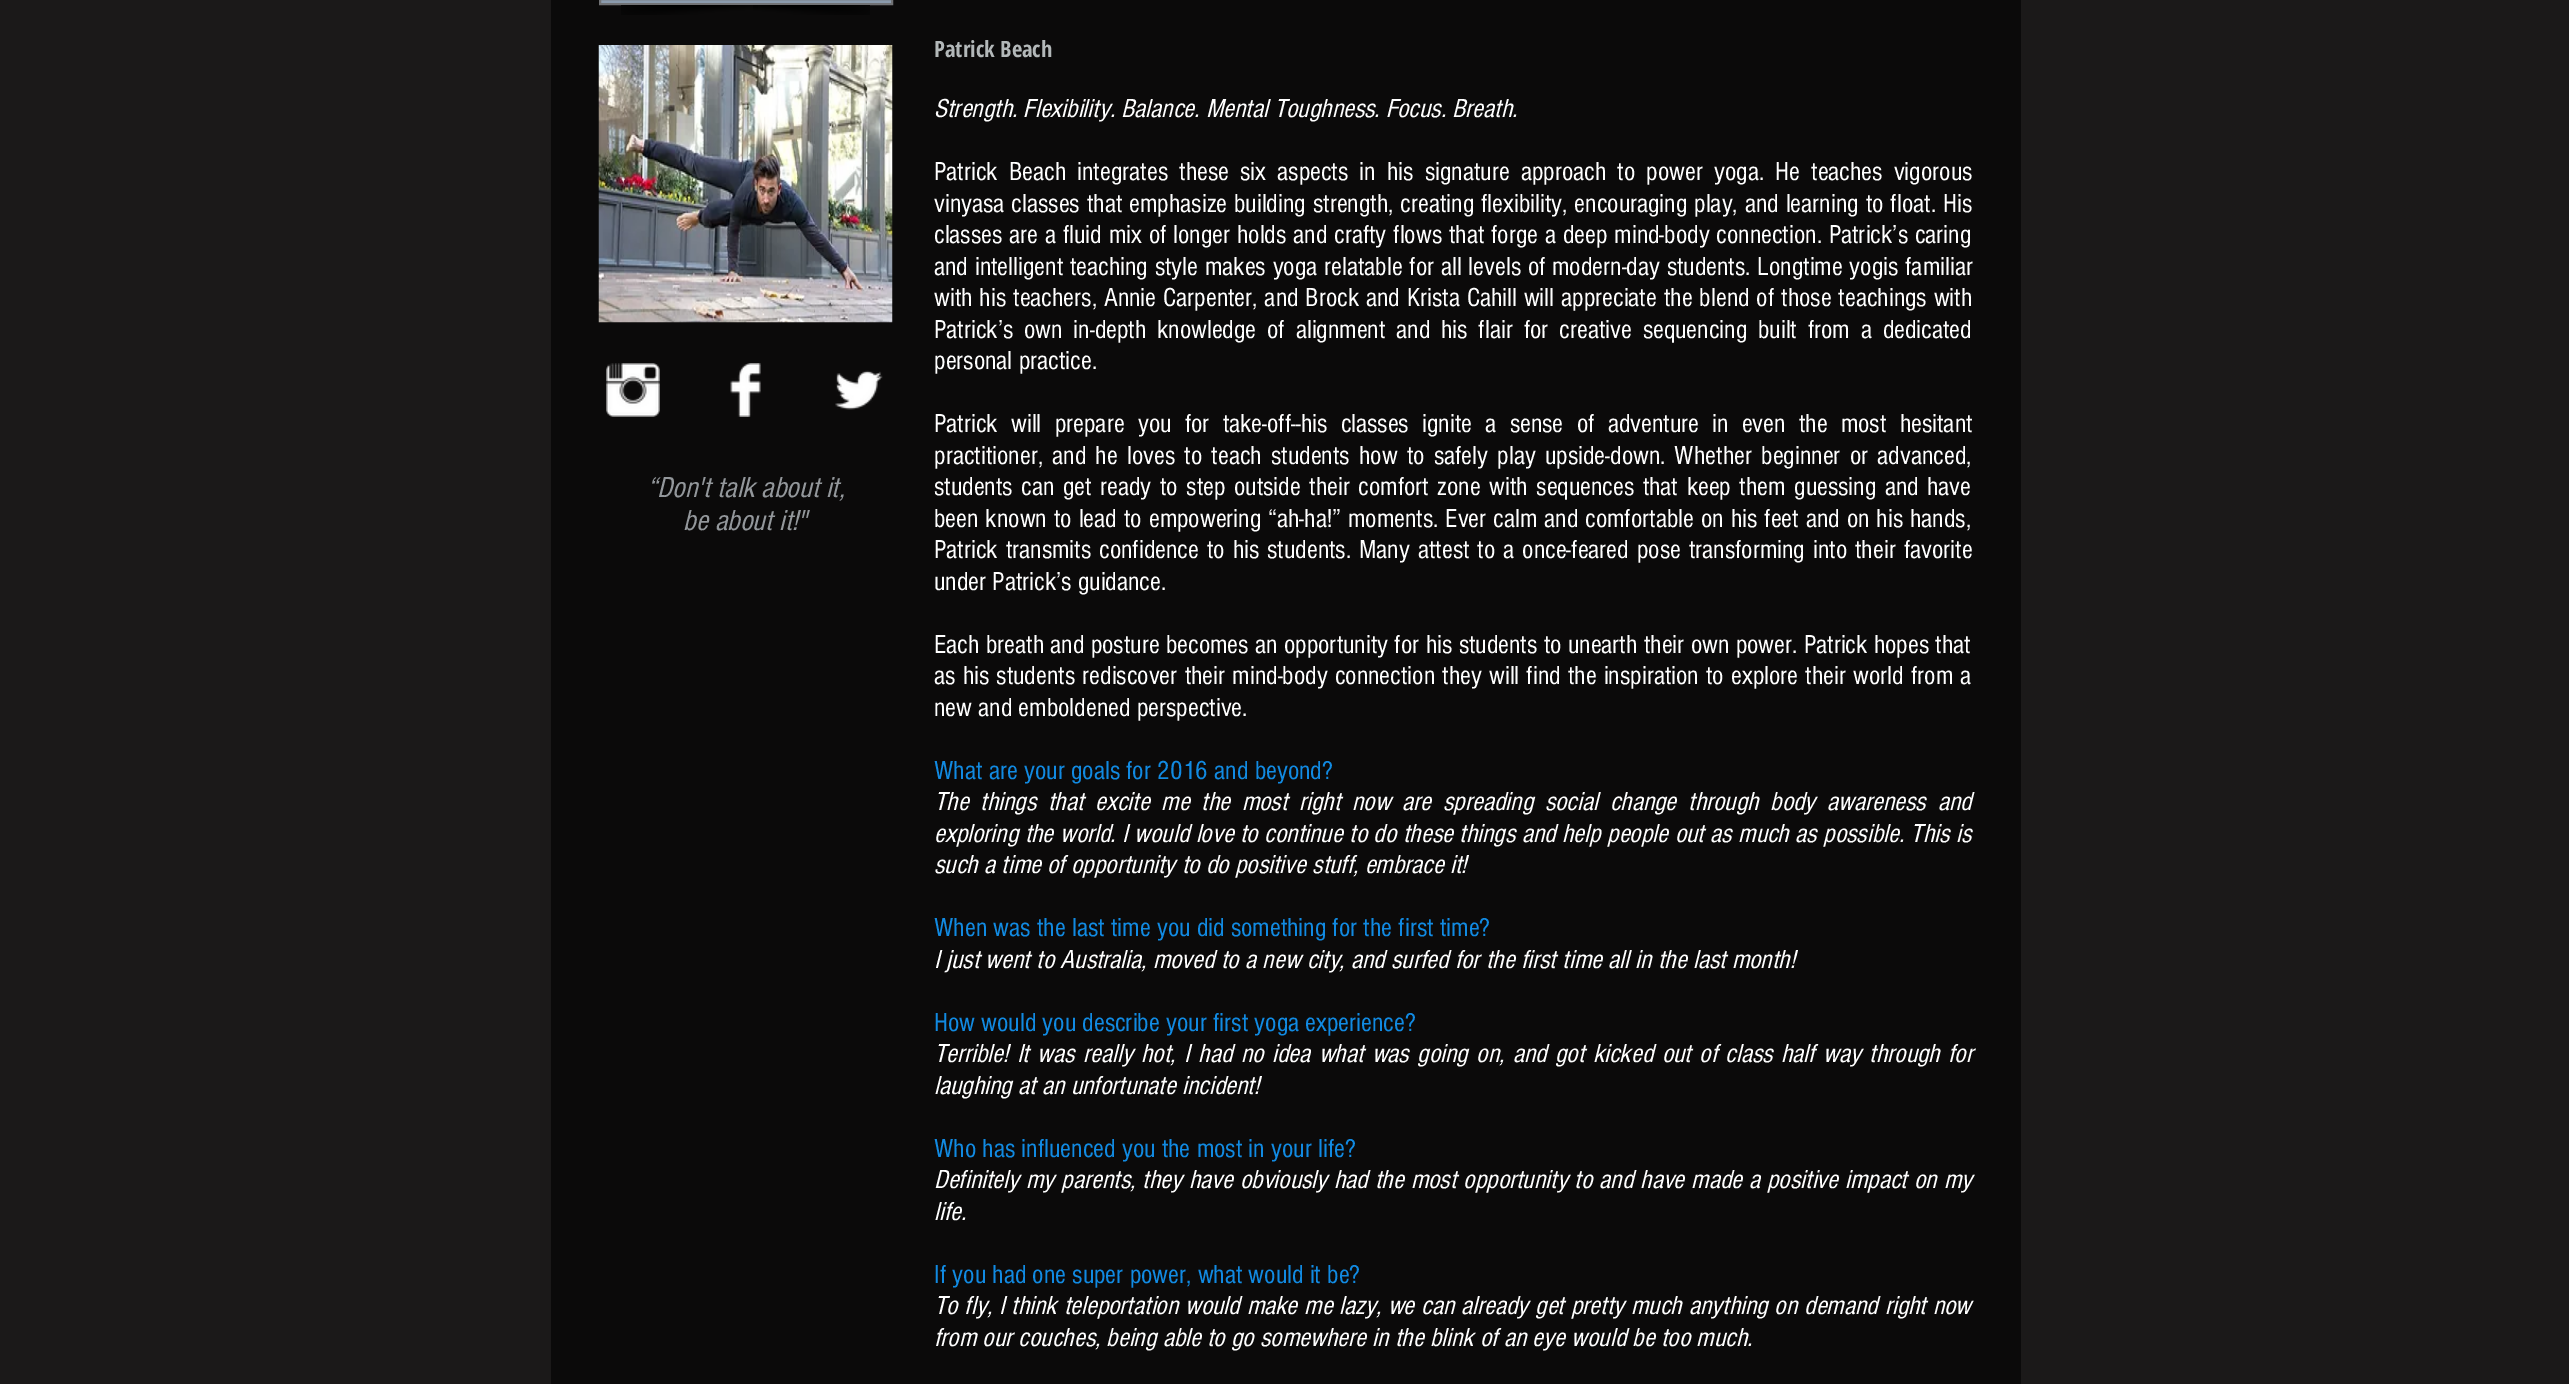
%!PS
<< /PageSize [2569 1384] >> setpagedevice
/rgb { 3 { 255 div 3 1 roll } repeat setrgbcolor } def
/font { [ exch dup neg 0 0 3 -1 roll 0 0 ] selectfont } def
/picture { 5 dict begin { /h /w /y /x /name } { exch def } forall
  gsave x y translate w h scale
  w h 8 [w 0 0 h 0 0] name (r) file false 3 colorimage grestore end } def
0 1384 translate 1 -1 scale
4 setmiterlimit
27 25 25 rgb
0 0 2569 1384 rectfill
11 10 10 rgb
551 0 1470 1384 rectfill
139 155 173 rgb
600 -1 moveto 892 -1 lineto 892 4 lineto 600 4 lineto closepath gsave fill grestore
113 114 117 rgb
2 setlinewidth
stroke
(img/1.rgb) 621 5 137 10 picture
(img/2.rgb) 753 5 117 10 picture
(img/3.rgb) 598 45 295 278 picture
(img/4.rgb) 606 363 54 54 picture
(img/5.rgb) 730 363 31 54 picture
(img/6.rgb) 835 370 48 40 picture
/OpenSansCondensed-Bold 22.5 font
179 184 185 rgb
934 57 moveto (Patrick Beach) show
/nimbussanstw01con-Italic 27 font
255 255 255 rgb
934 117 moveto (Strength. Flexibility. Balance. Mental Toughness. Focus. Breath.) show
/nimbussanstw01con-Regular 27 font
934 180 moveto 4.9 0 32 (Patrick Beach integrates these six aspects in his signature approach to power yoga. He teaches vigorous) widthshow
934 212 moveto 0.75 0 32 (vinyasa classes that emphasize building strength, creating flexibility, encouraging play, and learning to float. His) widthshow
934 243 moveto 0.6 0 32 (classes are a fluid mix of longer holds and crafty flows that forge a deep mind-body connection. Patrick’s caring) widthshow
934 275 moveto 0.5 0 32 (and intelligent teaching style makes yoga relatable for all levels of modern-day students. Longtime yogis familiar) widthshow
934 306 moveto 0.7 0 32 (with his teachers, Annie Carpenter, and Brock and Krista Cahill will appreciate the blend of those teachings with) widthshow
934 338 moveto 4.6 0 32 (Patrick’s own in-depth knowledge of alignment and his flair for creative sequencing built from a dedicated) widthshow
934 369 moveto (personal practice.) show
934 432 moveto 7 0 32 (Patrick will prepare you for take-off--his classes ignite a sense of adventure in even the most hesitant) widthshow
934 464 moveto 3 0 32 (practitioner, and he loves to teach students how to safely play upside-down. Whether beginner or advanced,) widthshow
934 495 moveto 2.25 0 32 (students can get ready to step outside their comfort zone with sequences that keep them guessing and have) widthshow
934 527 moveto 0.75 0 32 (been known to lead to empowering “ah-ha!” moments. Ever calm and comfortable on his feet and on his hands,) widthshow
934 558 moveto 1.7 0 32 (Patrick transmits confidence to his students. Many attest to a once-feared pose transforming into their favorite) widthshow
934 590 moveto (under Patrick’s guidance.) show
934 653 moveto 0.1 0 32 (Each breath and posture becomes an opportunity for his students to unearth their own power. Patrick hopes that) widthshow
934 684 moveto 0.9 0 32 (as his students rediscover their mind-body connection they will find the inspiration to explore their world from a) widthshow
934 716 moveto (new and emboldened perspective.) show
17 138 226 rgb
934 779 moveto (What are your goals for 2016 and beyond?) show
/nimbussanstw01con-Italic 27 font
255 255 255 rgb
934 810 moveto 5.5 0 32 (The things that excite me the most right now are spreading social change through body awareness and) widthshow
934 842 moveto 0.25 0 32 (exploring the world. I would love to continue to do these things and help people out as much as possible. This is) widthshow
934 873 moveto (such a time of opportunity to do positive stuff, embrace it!) show
/nimbussanstw01con-Regular 27 font
17 138 226 rgb
934 936 moveto (When was the last time you did something for the first time?) show
/nimbussanstw01con-Italic 27 font
255 255 255 rgb
934 968 moveto (I just went to Australia, moved to a new city, and surfed for the first time all in the last month!) show
/nimbussanstw01con-Regular 27 font
17 138 226 rgb
934 1031 moveto (How would you describe your first yoga experience?) show
/nimbussanstw01con-Italic 27 font
255 255 255 rgb
934 1062 moveto 2.2 0 32 (Terrible! It was really hot, I had no idea what was going on, and got kicked out of class half way through for) widthshow
934 1094 moveto (laughing at an unfortunate incident!) show
/nimbussanstw01con-Regular 27 font
17 138 226 rgb
934 1157 moveto (Who has influenced you the most in your life?) show
/nimbussanstw01con-Italic 27 font
255 255 255 rgb
934 1188 moveto 0.7 0 32 (Definitely my parents, they have obviously had the most opportunity to and have made a positive impact on my) widthshow
934 1220 moveto (life.) show
/nimbussanstw01con-Regular 27 font
17 138 226 rgb
934 1283 moveto (If you had one super power, what would it be?) show
/nimbussanstw01con-Italic 27 font
255 255 255 rgb
934 1314 moveto 0.6 0 32 (To fly, I think teleportation would make me lazy, we can already get pretty much anything on demand right now) widthshow
934 1346 moveto (from our couches, being able to go somewhere in the blink of an eye would be too much.) show
/nimbussanstw01con-Italic 30 font
147 151 155 rgb
647 497 moveto (“Don't talk about it,) show
683 530 moveto (be about it!") show
showpage
